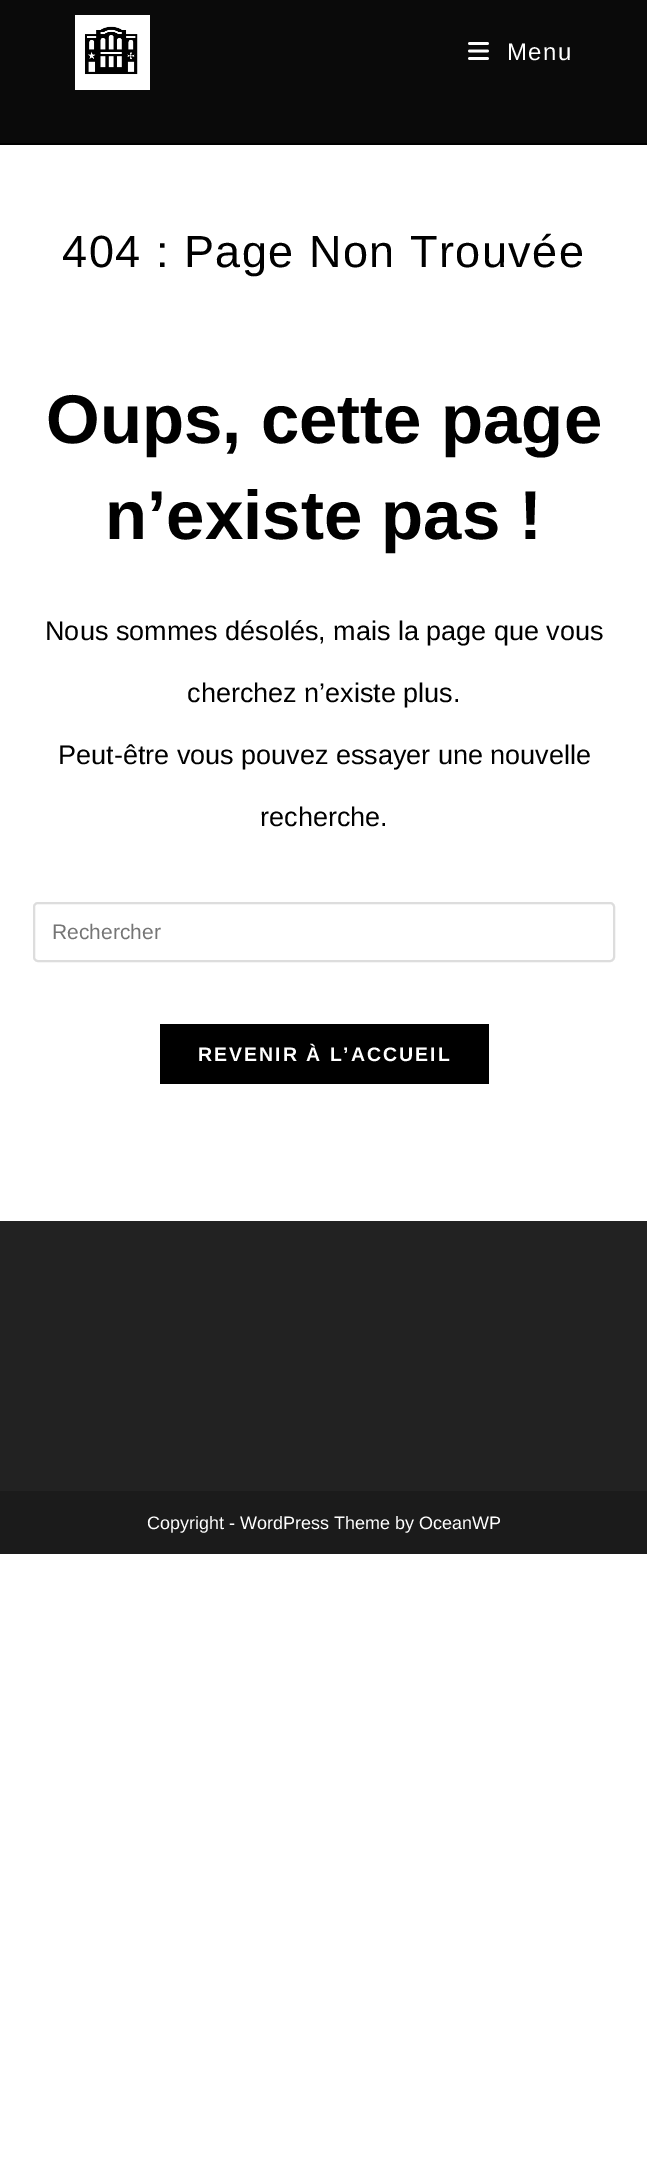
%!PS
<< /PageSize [647 2173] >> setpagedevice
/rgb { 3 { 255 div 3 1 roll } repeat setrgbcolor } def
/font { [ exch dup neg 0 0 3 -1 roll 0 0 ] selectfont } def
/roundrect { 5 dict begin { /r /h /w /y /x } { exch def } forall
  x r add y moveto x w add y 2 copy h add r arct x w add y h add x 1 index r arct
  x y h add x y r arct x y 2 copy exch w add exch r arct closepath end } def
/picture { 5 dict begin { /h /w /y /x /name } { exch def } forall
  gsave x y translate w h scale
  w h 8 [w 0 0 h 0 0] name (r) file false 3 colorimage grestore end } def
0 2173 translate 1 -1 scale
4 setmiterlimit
255 255 255 rgb
0 0 647 2173 rectfill
10 10 10 rgb
0 0 647 143 rectfill
0 0 0 rgb
0 143 647 2 rectfill
(img/1.rgb) 75 15 75 75 picture
(img/2.rgb) 468 42 21 18 picture
221 221 221 rgb
2 setlinewidth
34 903 580 58 4 roundrect stroke
[
  [160 1024 329 60 0 0 0]
  [0 1221 647 270 34 34 34]
  [0 1491 647 63 27 27 27]
] { aload pop rgb rectfill } forall
/LiberationSans-Regular 24 font
255 255 255 rgb
507 60 moveto 1.5 0 (Menu) ashow
/LiberationSans-Regular 45 font
0 0 0 rgb
62 267 moveto 1.5 0 (404 : Page Non Trouvée) ashow
/LiberationSans-Bold 69 font
46 443 moveto (Oups, cette page) show
105 539 moveto (n’existe pas !) show
/LiberationSans-Regular 27 font
[
  [(Nous sommes désolés, mais la page que vous) 45 640]
  [(cherchez n’existe plus.) 187 702]
  [(Peut-être vous pouvez essayer une nouvelle) 58 764]
  [(recherche.) 260 826]
] { aload pop moveto show } forall
/LiberationSans-Regular 21 font
117 117 117 rgb
52 939 moveto (Rechercher) show
/LiberationSans-Bold 19.5 font
255 255 255 rgb
198 1061 moveto 2 0 (REVENIR À L’ACCUEIL) ashow
/LiberationSans-Regular 18 font
147 1529 moveto (Copyright - WordPress Theme by OceanWP) show
showpage
